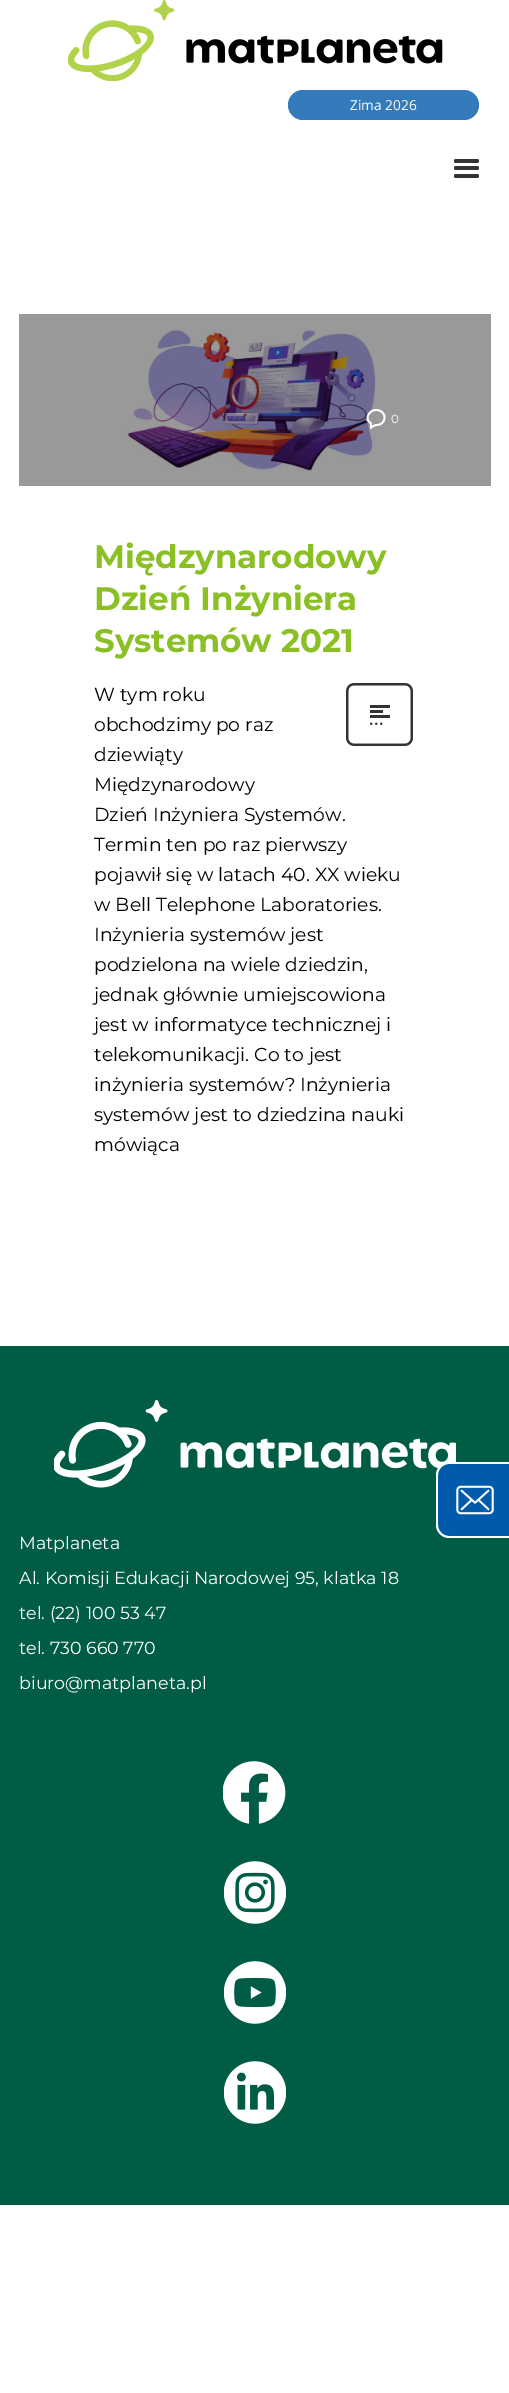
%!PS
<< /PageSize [509 2393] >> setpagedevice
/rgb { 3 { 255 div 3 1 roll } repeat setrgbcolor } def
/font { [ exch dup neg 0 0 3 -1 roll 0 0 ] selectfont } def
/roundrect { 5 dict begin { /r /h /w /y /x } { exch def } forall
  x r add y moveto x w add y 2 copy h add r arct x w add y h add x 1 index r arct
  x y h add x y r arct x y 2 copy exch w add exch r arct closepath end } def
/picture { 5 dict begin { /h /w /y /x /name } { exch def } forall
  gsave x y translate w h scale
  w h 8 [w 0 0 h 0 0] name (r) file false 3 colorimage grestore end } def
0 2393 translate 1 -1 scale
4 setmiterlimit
255 255 255 rgb
0 0 509 2393 rectfill
153 153 153 rgb
19 314 472 172 rectfill
(img/1.rgb) 68 0 375 81 picture
51 123 187 rgb
288 90 191 30 15 roundrect fill
51 51 51 rgb
454 159 25 4 2 roundrect fill
454 166 25 4 2 roundrect fill
454 174 25 4 2 roundrect fill
(img/2.rgb) 127 330 249 142 picture
255 255 255 rgb
1.8 setlinewidth
376 410 moveto 369 410 364 419 371 423.5 curveto 371 427.5 lineto 375.5 425 lineto 387 426 388 410 376 410 curveto closepath stroke
(img/3.rgb) 346 683 67 63 picture
0 92 69 rgb
0 1346 509 859 rectfill
(img/4.rgb) 54 1400 402 88 picture
(img/5.rgb) 223 1761 63 63 picture
(img/6.rgb) 224 1861 62 63 picture
(img/7.rgb) 224 1961 62 63 picture
(img/8.rgb) 224 2061 62 63 picture
0 91 170 rgb
449 1463 moveto 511 1463 lineto 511 1538 lineto 449 1538 lineto 442 1538 436 1532 436 1525 curveto 436 1476 lineto 436 1469 442 1463 449 1463 curveto closepath fill
255 255 255 rgb
449 1462 moveto 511 1462 lineto 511 1538 lineto 449 1538 lineto 442 1538 436 1532 436 1525 curveto 436 1475 lineto 436 1468 442 1462 449 1462 curveto closepath 449 1464 moveto 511 1464 lineto 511 1536 lineto 449 1536 lineto 443 1536 438 1531 438 1525 curveto 438 1475 lineto 438 1469 443 1464 449 1464 curveto closepath eofill
(img/9.rgb) 456 1485 38 30 picture
/OpenSans-Regular 13.75 font
350 110 moveto (Zima 2026) show
/Montserrat-Regular 12 font
391 423 moveto (0) show
/Montserrat-Bold 32.5 font
138 192 36 rgb
[
  [(Międzynarodowy) 94 568]
  [(Dzień Inżyniera) 94 610]
  [(Systemów 2021) 94 652]
] { aload pop moveto show } forall
/Montserrat-Regular 18.75 font
2 2 2 rgb
[
  [(W tym roku) 94 701]
  [(obchodzimy po raz) 94 731]
  [(dziewiąty) 94 761]
  [(Międzynarodowy) 94 791]
  [(Dzień Inżyniera Systemów.) 94 821]
  [(Termin ten po raz pierwszy) 94 851]
  [(pojawił się w latach 40. XX wieku) 94 881]
  [(w Bell Telephone Laboratories.) 94 911]
  [(Inżynieria systemów jest) 94 941]
  [(podzielona na wiele dziedzin,) 94 971]
  [(jednak głównie umiejscowiona) 94 1001]
  [(jest w informatyce technicznej i) 94 1031]
  [(telekomunikacji. Co to jest) 94 1061]
  [(inżynieria systemów? Inżynieria) 94 1091]
  [(systemów jest to dziedzina nauki) 94 1121]
  [(mówiąca) 94 1151]
] { aload pop moveto show } forall
/Montserrat-Regular 17.5 font
255 255 255 rgb
[
  [(Matplaneta) 19 1549]
  [(Al. Komisji Edukacji Narodowej 95, klatka 18) 19 1584]
  [(tel. \(22\) 100 53 47) 19 1619]
  [(tel. 730 660 770) 19 1654]
  [(biuro@matplaneta.pl) 19 1689]
] { aload pop moveto show } forall
showpage
